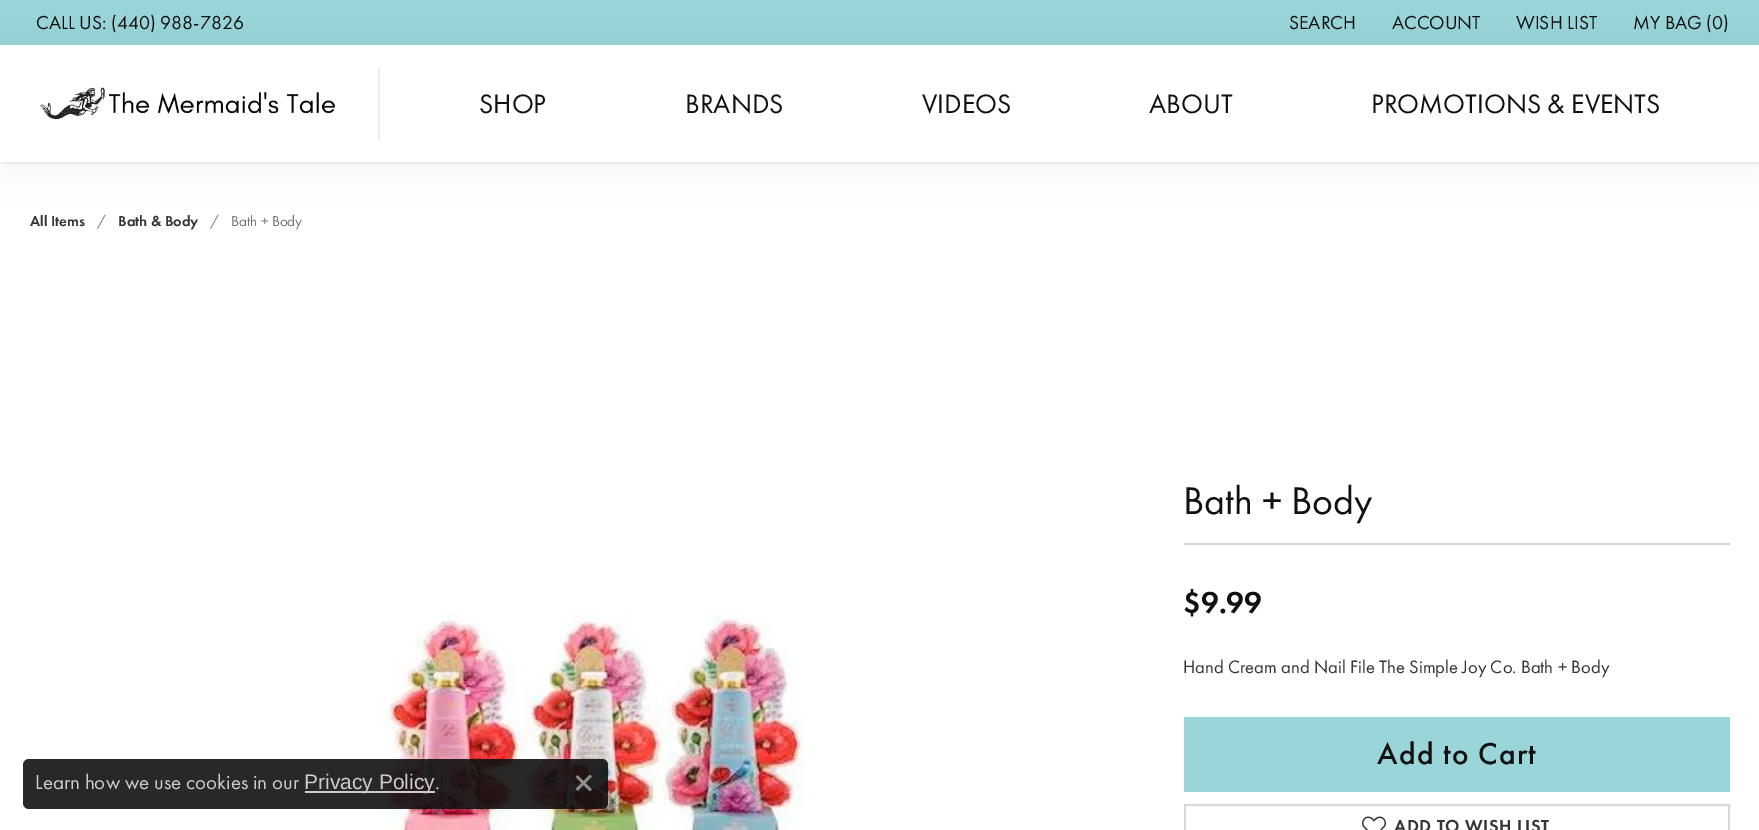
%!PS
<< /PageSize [1759 830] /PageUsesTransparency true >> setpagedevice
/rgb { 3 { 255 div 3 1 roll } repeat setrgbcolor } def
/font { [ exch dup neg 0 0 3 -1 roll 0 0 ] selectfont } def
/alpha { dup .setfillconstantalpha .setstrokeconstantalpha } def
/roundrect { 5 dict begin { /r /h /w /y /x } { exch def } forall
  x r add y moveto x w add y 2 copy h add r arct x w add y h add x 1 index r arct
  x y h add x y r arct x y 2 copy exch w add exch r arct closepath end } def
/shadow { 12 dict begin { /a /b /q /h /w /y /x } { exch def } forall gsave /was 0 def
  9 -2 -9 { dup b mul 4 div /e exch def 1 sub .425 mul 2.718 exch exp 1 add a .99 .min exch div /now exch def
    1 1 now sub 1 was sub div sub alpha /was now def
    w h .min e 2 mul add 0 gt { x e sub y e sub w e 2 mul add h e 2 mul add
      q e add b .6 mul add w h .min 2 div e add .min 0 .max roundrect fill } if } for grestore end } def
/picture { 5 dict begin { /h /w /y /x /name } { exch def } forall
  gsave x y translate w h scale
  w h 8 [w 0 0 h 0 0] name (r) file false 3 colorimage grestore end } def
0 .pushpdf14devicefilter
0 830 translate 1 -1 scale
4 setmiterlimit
153 213 217 rgb
0 0 1759 830 rectfill
255 255 255 rgb
0 164 1759 666 rectfill
0 0 0 rgb
0 45 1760 119 0 22.5 0.05 shadow
[
  [0 45 1759 117 255 255 255]
  [0 162 1759 2 236 236 236]
  [378 68 2 72 236 236 236]
] { aload pop rgb rectfill } forall
(img/1.rgb) 40 87 296 33 picture
(img/2.rgb) 380 612 424 218 picture
213 213 213 rgb
1184 543 546 2 rectfill
153 213 217 rgb
1184 717 546 75 rectfill
217 217 217 rgb
2 setlinewidth
1185 805 544 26 rectstroke
(img/3.rgb) 1362 816 24 14 picture
0.9 alpha
17 17 17 rgb
23 759 585 50 6 roundrect fill
1 alpha
204 204 204 rgb
305 791 130 2 rectfill
(img/4.rgb) 575 774 17 18 picture
/FuturaPT-Regular 19.5 font
17 17 17 rgb
[
  [(CALL US: \(440\) 988-7826) 36 29]
  [(SEARCH) 1289 29]
  [(ACCOUNT) 1392 29]
  [(WISH LIST) 1516 29]
  [(MY BAG \(0\)) 1633 29]
] { aload pop moveto show } forall
/FuturaPT-Regular 27.6 font
[
  [(SHOP) 479 113]
  [(BRANDS) 685 113]
  [(VIDEOS) 922 113]
  [(ABOUT) 1149 113]
  [(PROMOTIONS & EVENTS) 1371 113]
] { aload pop moveto show } forall
/FuturaPT-Medium 15 font
53 53 53 rgb
30 226 moveto (All Items) show
/FuturaPT-Regular 15 font
125 125 125 rgb
97 226 moveto (/) show
/FuturaPT-Medium 15 font
53 53 53 rgb
118 226 moveto (Bath & Body) show
/FuturaPT-Regular 15 font
125 125 125 rgb
210 226 moveto (/) show
117 117 117 rgb
231 226 moveto (Bath + Body) show
/FuturaPT-Regular 40 font
17 17 17 rgb
1183 514 moveto (Bath + Body) show
/FuturaPT-Medium 31.25 font
1183 613 moveto ($9.99) show
/FuturaPT-Regular 18.6 font
53 53 53 rgb
1183 673 moveto (Hand Cream and Nail File The Simple Joy Co. Bath + Body) show
/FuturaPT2-Medium 31.25 font
17 17 17 rgb
1377 764 moveto 1.25 0 (Add to Cart) ashow
/FuturaPT-Medium 18 font
53 53 53 rgb
1394 832 moveto 0.6 0 (ADD TO WISH LIST) ashow
/FuturaPT-Regular 21 font
204 204 204 rgb
35 789 moveto (Learn how we use cookies in our) show
/LiberationSans-Regular 21 font
304 789 moveto (Privacy Policy) show
/FuturaPT-Regular 21 font
435 789 moveto (.) show
.poppdf14devicefilter showpage
